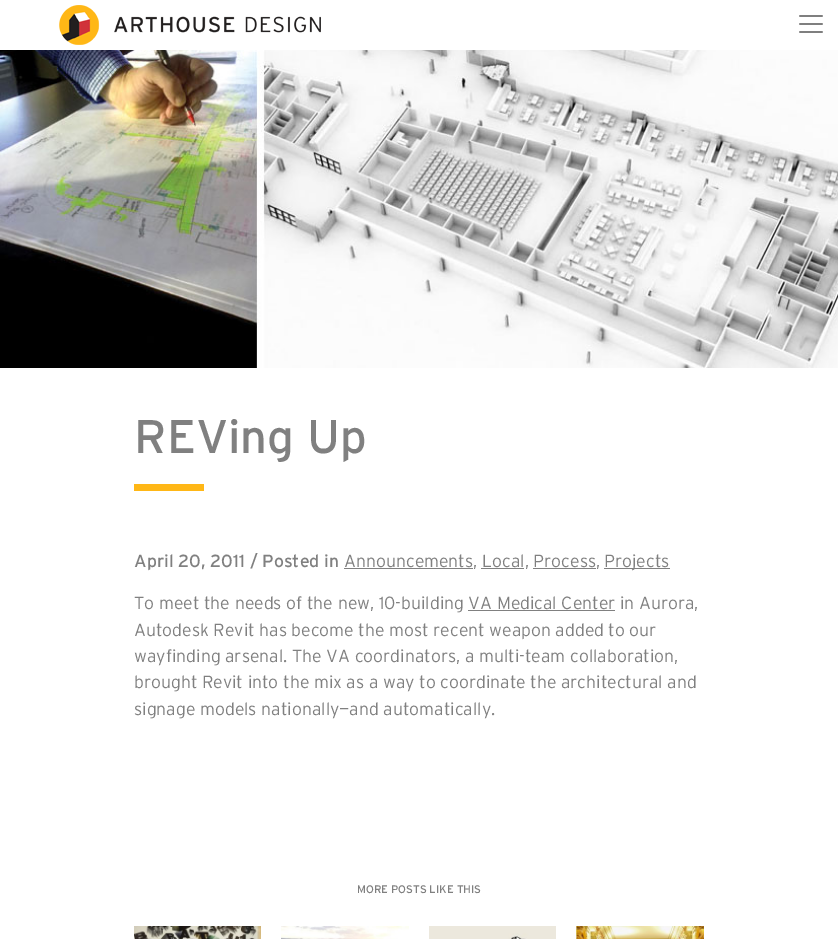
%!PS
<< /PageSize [838 939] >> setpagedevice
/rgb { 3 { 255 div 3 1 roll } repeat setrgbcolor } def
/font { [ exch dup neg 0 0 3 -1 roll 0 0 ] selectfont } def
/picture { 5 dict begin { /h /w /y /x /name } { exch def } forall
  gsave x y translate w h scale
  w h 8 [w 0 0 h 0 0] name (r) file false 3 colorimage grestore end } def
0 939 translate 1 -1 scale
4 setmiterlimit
255 255 255 rgb
0 0 838 939 rectfill
(img/1.rgb) 59 5 262 40 picture
(img/2.rgb) 799 15 24 18 picture
(img/3.rgb) 0 50 838 318 picture
[
  [134 484 70 7 255 183 22]
  [344 568 129 1 128 128 128]
  [481 568 43 1 128 128 128]
  [533 568 63 1 128 128 128]
  [604 568 66 1 128 128 128]
  [468 610 147 1 128 128 128]
] { aload pop rgb rectfill } forall
(img/4.rgb) 134 926 127 13 picture
(img/5.rgb) 281 926 128 13 picture
(img/6.rgb) 429 926 127 13 picture
(img/7.rgb) 576 926 128 13 picture
/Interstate-Regular 47 font
134 453 moveto (REVing Up) show
/Interstate-Regular 17.6 font
134 567 moveto (April 20, 2011 / Posted in) show
/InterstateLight-Light 17.6 font
[
  [(Announcements, Local, Process,) 344 567]
  [(Projects) 604 567]
  [(To meet the needs of the new, 10-building VA Medical Center in Aurora,) 134 609]
  [(Autodesk Revit has become the most recent weapon added to our) 134 636]
  [(wayfinding arsenal. The VA coordinators, a multi-team collaboration,) 134 662]
  [(brought Revit into the mix as a way to coordinate the architectural and) 134 688]
  [(signage models nationally—and automatically.) 134 715]
] { aload pop moveto show } forall
/Interstate-Regular 11 font
357 893 moveto (MORE POSTS LIKE THIS) show
showpage
